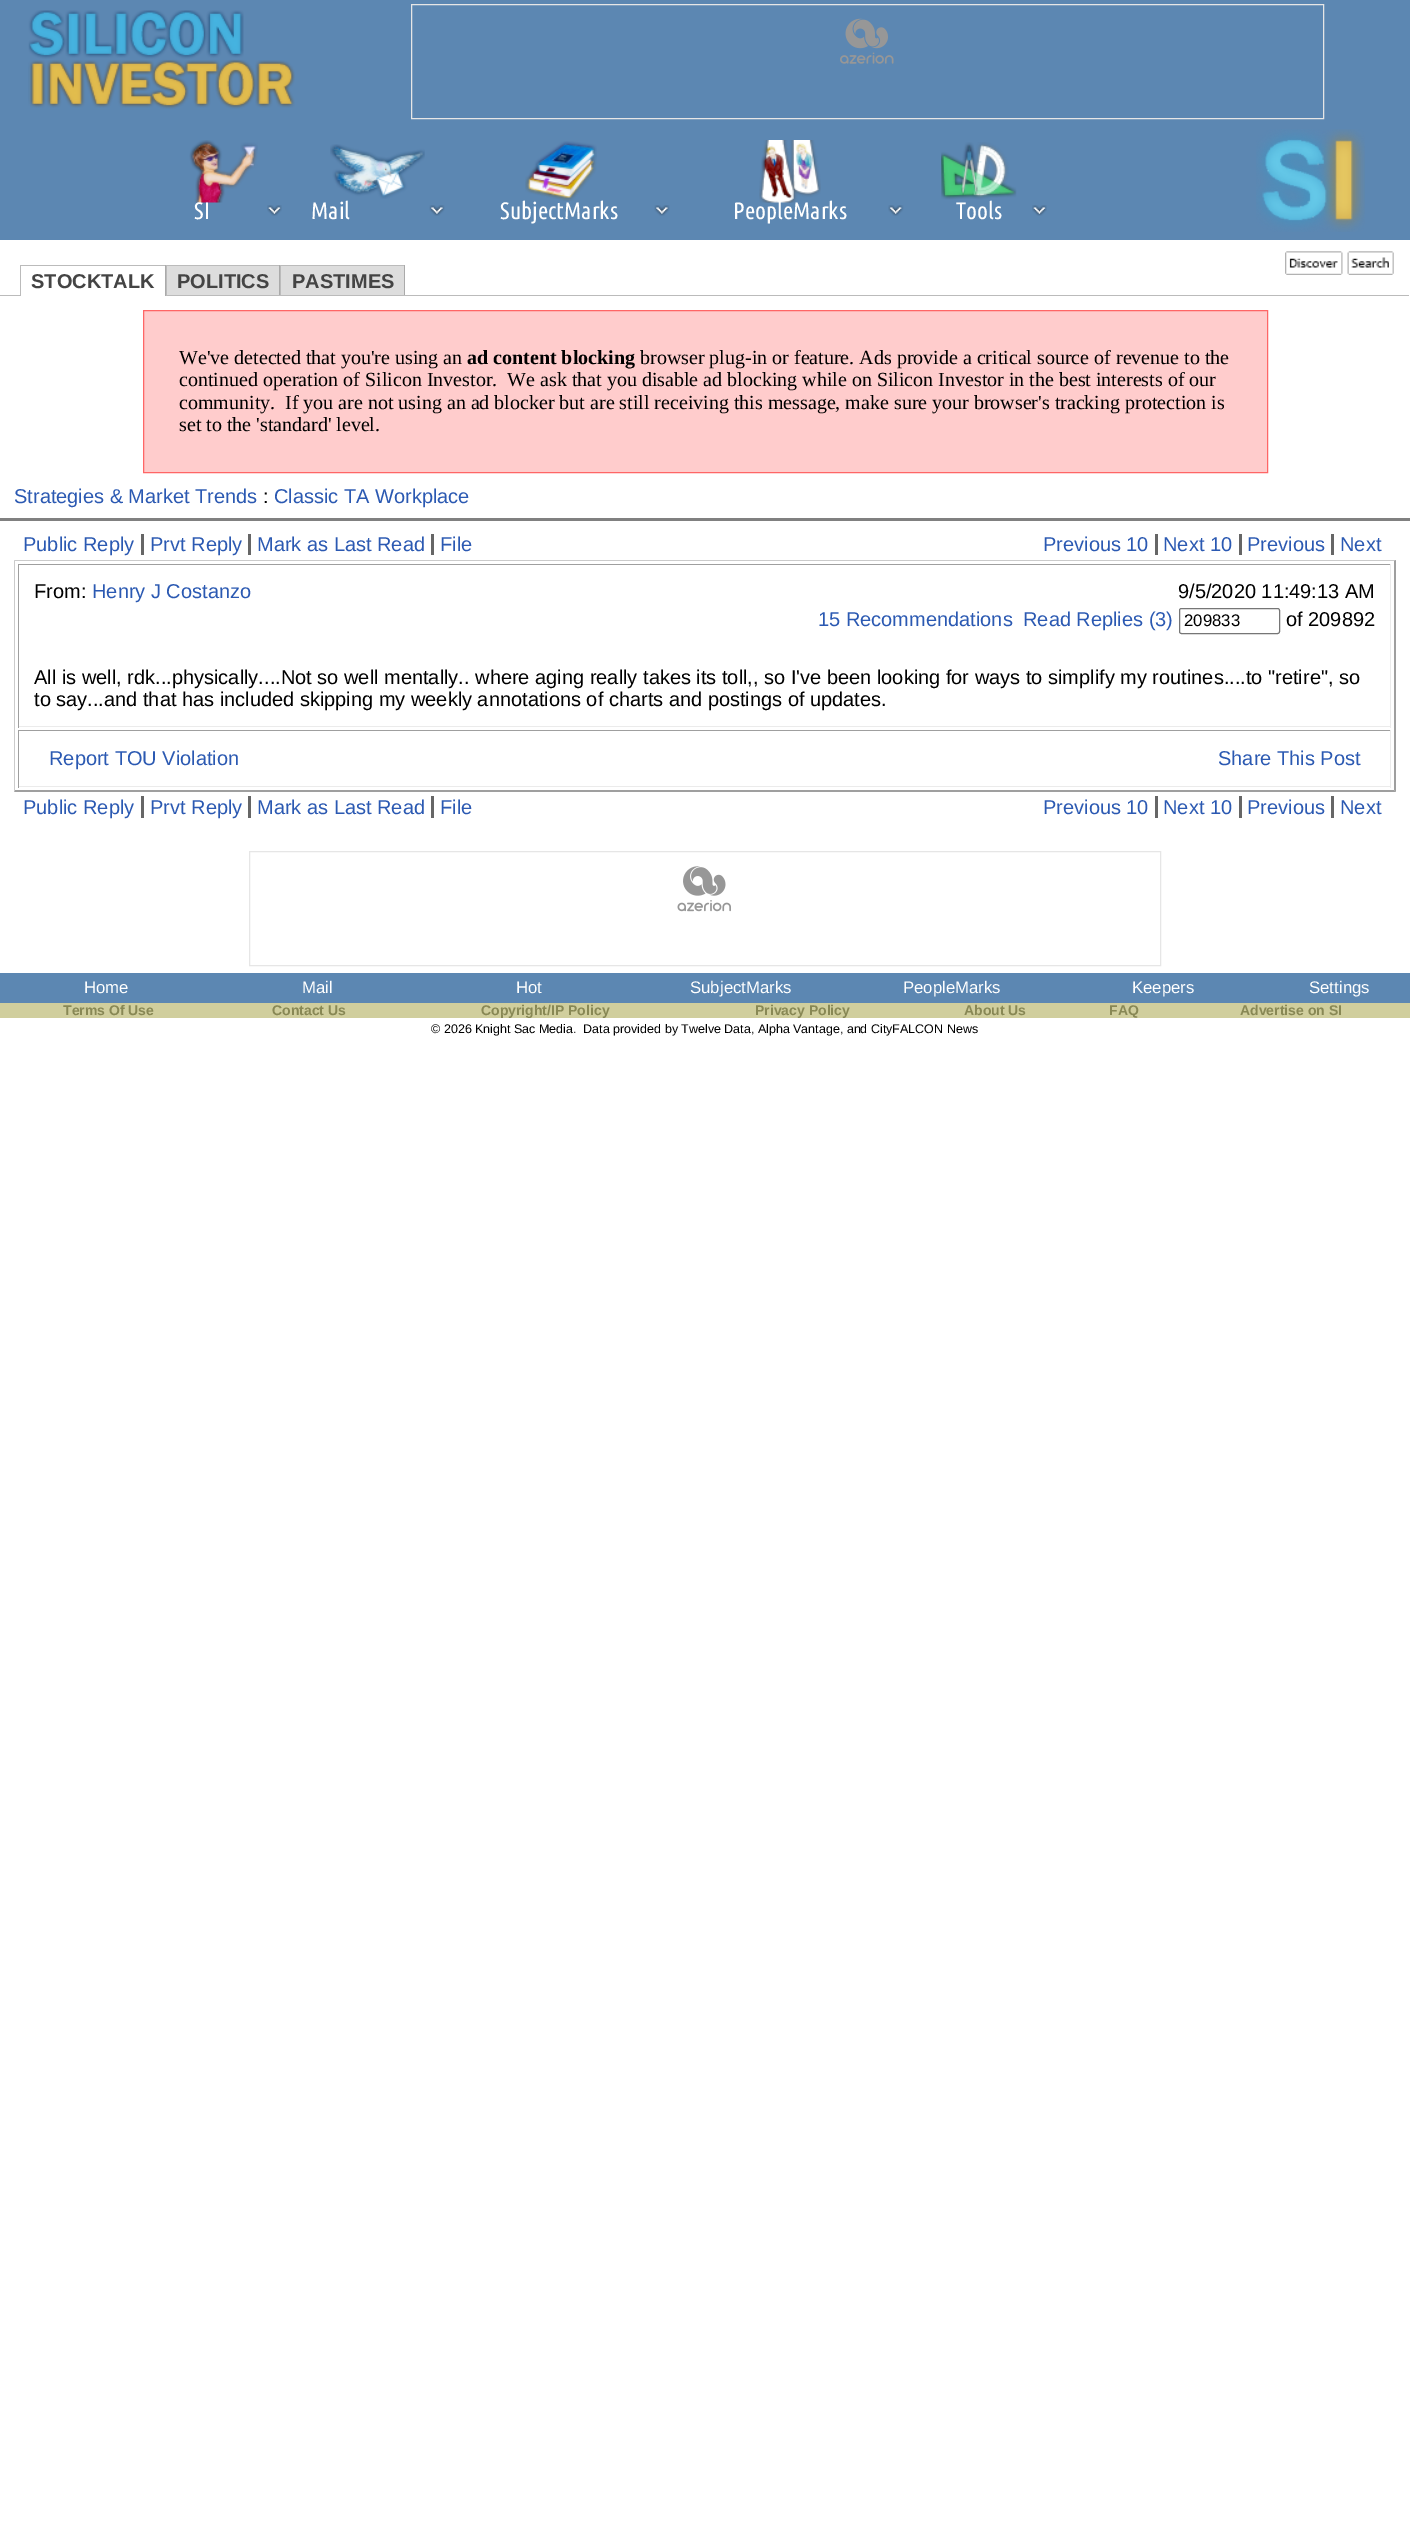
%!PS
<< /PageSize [1410 2541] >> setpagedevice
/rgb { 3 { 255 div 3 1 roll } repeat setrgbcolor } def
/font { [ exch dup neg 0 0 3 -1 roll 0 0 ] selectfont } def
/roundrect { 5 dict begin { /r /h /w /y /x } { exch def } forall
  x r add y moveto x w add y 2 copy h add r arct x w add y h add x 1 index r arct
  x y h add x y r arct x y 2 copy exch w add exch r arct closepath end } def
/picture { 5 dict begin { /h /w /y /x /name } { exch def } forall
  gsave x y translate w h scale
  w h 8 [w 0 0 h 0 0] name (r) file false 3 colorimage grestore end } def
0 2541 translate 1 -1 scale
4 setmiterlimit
255 255 255 rgb
0 0 1410 2541 rectfill
92 135 178 rgb
0 0 1410 240 rectfill
(img/1.rgb) 28 10 267 99 picture
230 230 230 rgb
411.5 4.5 912 114 rectstroke
(img/2.rgb) 840 18 54 46 picture
(img/3.rgb) 189 140 69 63 picture
(img/4.rgb) 267 205 15 11 picture
(img/5.rgb) 330 144 95 55 picture
(img/6.rgb) 429 205 16 11 picture
(img/7.rgb) 525 141 72 60 picture
(img/8.rgb) 654 205 16 11 picture
(img/9.rgb) 759 140 62 63 picture
(img/10.rgb) 888 205 16 11 picture
(img/11.rgb) 941 142 76 58 picture
(img/12.rgb) 1032 205 15 11 picture
(img/13.rgb) 1256 129 109 103 picture
(img/14.rgb) 1285 251 58 24 picture
(img/15.rgb) 1347 251 47 24 picture
[
  [20 265 385 1 187 187 187]
  [279 265 1 31 170 170 170]
  [166 265 1 31 187 187 187]
  [404 265 1 31 170 170 170]
  [280 265 1 31 187 187 187]
  [0 295 1409 1 187 187 187]
  [21 295 144 1 255 255 255]
  [165 265 1 31 170 170 170]
  [20 265 1 31 187 187 187]
  [167 266 112 29 221 221 221]
  [281 266 123 29 221 221 221]
] { aload pop rgb rectfill } forall
255 204 204 rgb
143.5 310.5 moveto 1267.5 310.5 lineto 1267.5 472.5 lineto 143.5 472.5 lineto closepath gsave fill grestore
255 102 102 rgb
stroke
[
  [0 518 1410 3 128 128 128]
  [141 534 3 21 102 102 102]
  [248 534 3 21 102 102 102]
  [431 534 3 21 102 102 102]
  [1155 534 3 21 102 102 102]
  [1239 534 3 21 102 102 102]
  [1331 534 3 21 102 102 102]
] { aload pop rgb rectfill } forall
203 203 203 rgb
14 560 moveto 1396 560 lineto 1394 561 lineto 15 561 lineto closepath fill
159 159 159 rgb
1396 560 moveto 1396 792 lineto 1394 790 lineto 1394 561 lineto closepath fill
1396 792 moveto 14 792 lineto 15 790 lineto 1394 790 lineto closepath fill
203 203 203 rgb
14 792 moveto 14 560 lineto 15 561 lineto 15 790 lineto closepath fill
[
  [18 564 1373 1 159 159 159]
  [1390 564 1 164 235 235 235]
  [18 726 1373 1 235 235 235]
  [18 564 1 164 159 159 159]
] { aload pop rgb rectfill } forall
118 118 118 rgb
1179.5 608.5 100 25 2 roundrect stroke
[
  [18 730 1373 1 159 159 159]
  [1390 730 1 58 235 235 235]
  [18 786 1373 1 235 235 235]
  [18 730 1 58 159 159 159]
  [141 796 3 22 102 102 102]
  [248 796 3 22 102 102 102]
  [431 796 3 22 102 102 102]
  [1155 796 3 22 102 102 102]
  [1239 796 3 22 102 102 102]
  [1331 796 3 22 102 102 102]
] { aload pop rgb rectfill } forall
230 230 230 rgb
249.5 851.5 911 114 rectstroke
(img/16.rgb) 677 866 54 46 picture
92 135 178 rgb
0 973 1410 30 rectfill
208 206 157 rgb
0 1003 1410 15 rectfill
/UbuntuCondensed-Regular 23.75 font
255 255 255 rgb
[
  [(SI) 194 219]
  [(Mail) 311 219]
  [(SubjectMarks) 500 219]
  [(PeopleMarks) 733 219]
  [(Tools) 956 219]
] { aload pop moveto show } forall
/LiberationSans-Bold 20 font
68 68 68 rgb
[
  [(STOCKTALK) 31 288]
  [(POLITICS) 177 288]
  [(PASTIMES) 292 288]
] { aload pop moveto show } forall
/LiberationSerif-Regular 20 font
0 0 0 rgb
179 364 moveto (We've detected that you're using an) show
/LiberationSerif-Bold 20 font
467 364 moveto (ad content blocking) show
/LiberationSerif-Regular 20 font
[
  [(browser plug-in or feature. Ads provide a critical source of revenue to the) 640 364]
  [(continued operation of Silicon Investor.  We ask that you disable ad blocking while on Silicon Investor in the best interests of our) 179 386]
  [(community.  If you are not using an ad blocker but are still receiving this message, make sure your browser's tracking protection is) 179 409]
  [(set to the 'standard' level.) 179 431]
] { aload pop moveto show } forall
/LiberationSans-Regular 20 font
43 89 178 rgb
14 503 moveto (Strategies & Market Trends) show
0 0 0 rgb
263 503 moveto (:) show
43 89 178 rgb
[
  [(Classic TA Workplace) 274 503]
  [(Public Reply) 23 551]
  [(Prvt Reply) 150 551]
  [(Mark as Last Read) 257 551]
  [(File) 440 551]
  [(Previous 10) 1043 551]
  [(Next 10) 1163 551]
  [(Previous) 1247 551]
  [(Next) 1340 551]
] { aload pop moveto show } forall
0 0 0 rgb
34 598 moveto (From:) show
43 89 178 rgb
92 598 moveto (Henry J Costanzo) show
0 0 0 rgb
1178 598 moveto (9/5/2020 11:49:13 AM) show
43 89 178 rgb
818 626 moveto (15 Recommendations) show
1023 626 moveto (Read Replies \(3\)) show
/LiberationSans-Regular 16.75 font
0 0 0 rgb
1184 626 moveto (209833) show
/LiberationSans-Regular 20 font
[
  [(of 209892) 1286 626]
  [(All is well, rdk...physically....Not so well mentally.. where aging really takes its toll,, so I've been looking for ways to simplify my routines....to "retire", so) 34 684]
  [(to say...and that has included skipping my weekly annotations of charts and postings of updates.) 34 706]
] { aload pop moveto show } forall
43 89 178 rgb
[
  [(Report TOU Violation) 49 765]
  [(Share This Post) 1218 765]
  [(Public Reply) 23 814]
  [(Prvt Reply) 150 814]
  [(Mark as Last Read) 257 814]
  [(File) 440 814]
  [(Previous 10) 1043 814]
  [(Next 10) 1163 814]
  [(Previous) 1247 814]
  [(Next) 1340 814]
] { aload pop moveto show } forall
/LiberationSans-Regular 16.75 font
255 255 255 rgb
[
  [(Home) 84 993]
  [(Mail) 302 993]
  [(Hot) 516 993]
  [(SubjectMarks) 690 993]
  [(PeopleMarks) 903 993]
  [(Keepers) 1132 993]
  [(Settings) 1309 993]
] { aload pop moveto show } forall
/LiberationSans-Bold 14 font
136 136 85 rgb
[
  [(Terms Of Use) 63 1015]
  [(Contact Us) 272 1015]
  [(Copyright/IP Policy) 481 1015]
  [(Privacy Policy) 755 1015]
  [(About Us) 964 1015]
  [(FAQ) 1109 1015]
  [(Advertise on SI) 1240 1015]
] { aload pop moveto show } forall
/LiberationSans-Regular 12.5 font
0 0 0 rgb
431 1033 moveto (© 2026 Knight Sac Media.  Data provided by Twelve Data, Alpha Vantage, and CityFALCON News) show
showpage
